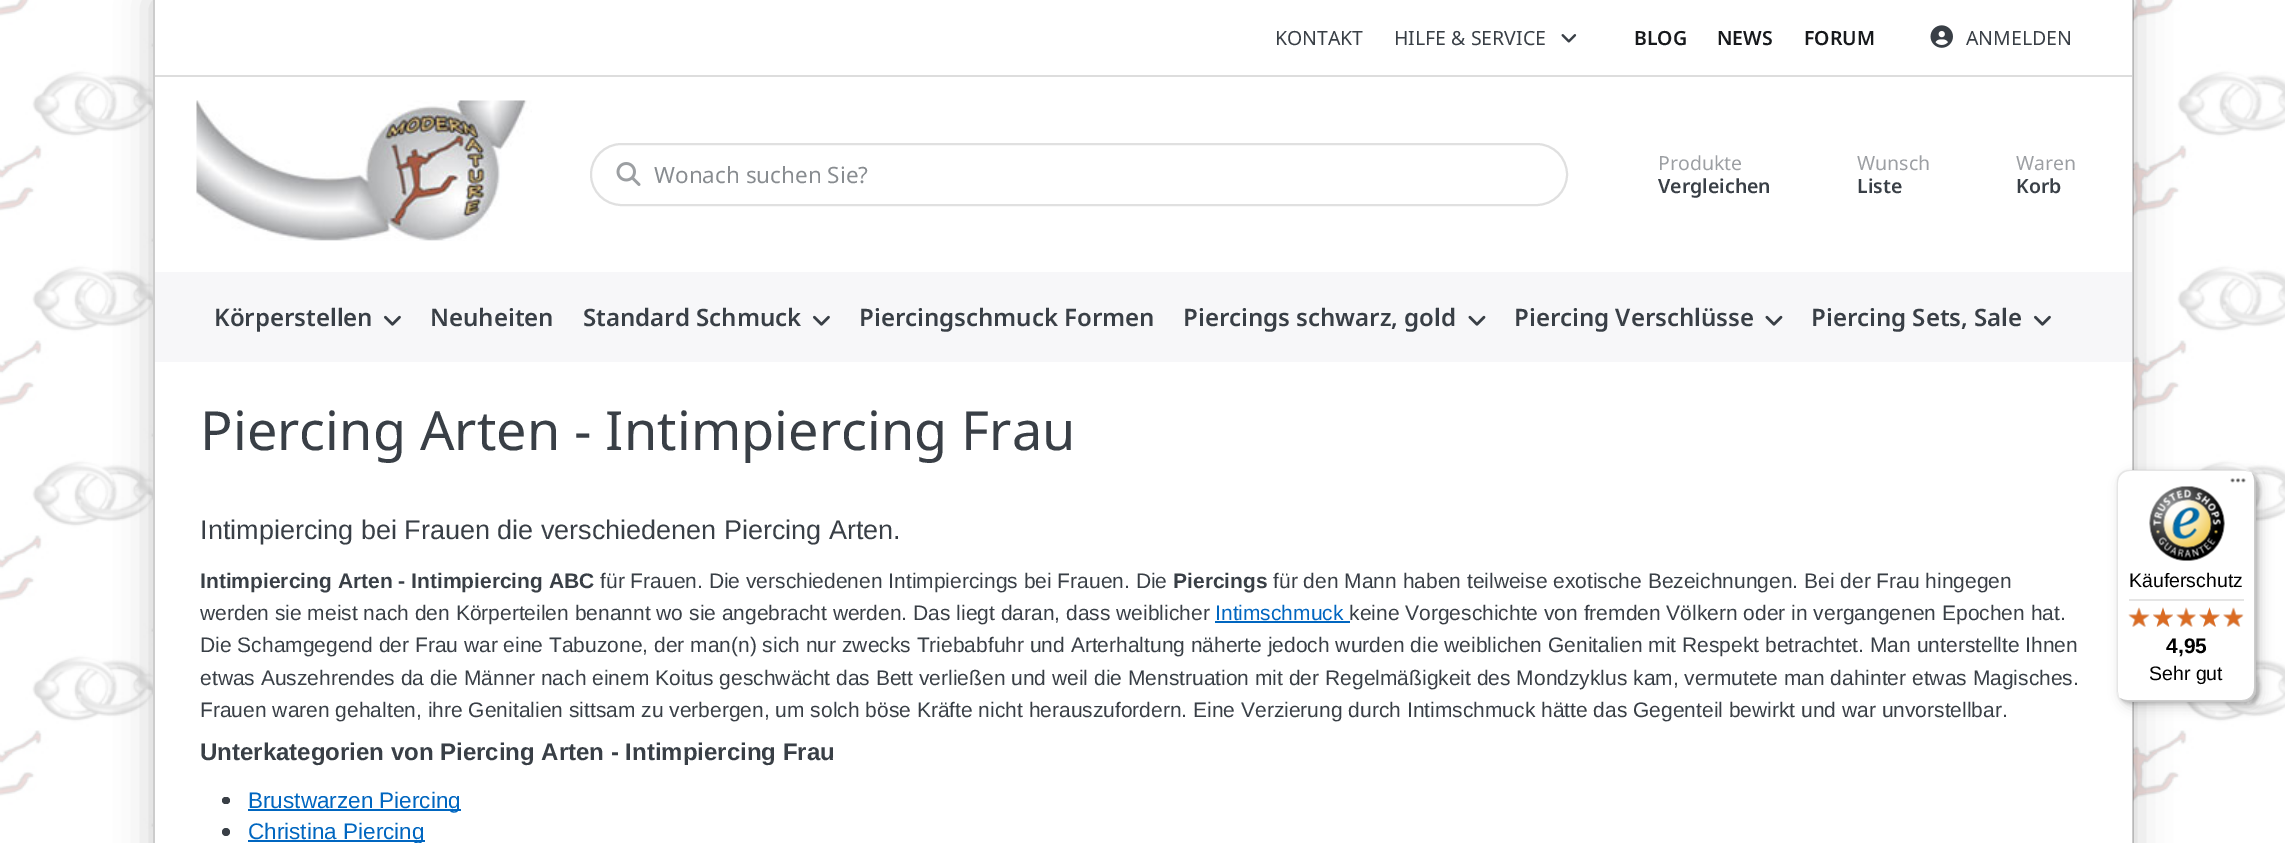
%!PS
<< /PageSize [2285 843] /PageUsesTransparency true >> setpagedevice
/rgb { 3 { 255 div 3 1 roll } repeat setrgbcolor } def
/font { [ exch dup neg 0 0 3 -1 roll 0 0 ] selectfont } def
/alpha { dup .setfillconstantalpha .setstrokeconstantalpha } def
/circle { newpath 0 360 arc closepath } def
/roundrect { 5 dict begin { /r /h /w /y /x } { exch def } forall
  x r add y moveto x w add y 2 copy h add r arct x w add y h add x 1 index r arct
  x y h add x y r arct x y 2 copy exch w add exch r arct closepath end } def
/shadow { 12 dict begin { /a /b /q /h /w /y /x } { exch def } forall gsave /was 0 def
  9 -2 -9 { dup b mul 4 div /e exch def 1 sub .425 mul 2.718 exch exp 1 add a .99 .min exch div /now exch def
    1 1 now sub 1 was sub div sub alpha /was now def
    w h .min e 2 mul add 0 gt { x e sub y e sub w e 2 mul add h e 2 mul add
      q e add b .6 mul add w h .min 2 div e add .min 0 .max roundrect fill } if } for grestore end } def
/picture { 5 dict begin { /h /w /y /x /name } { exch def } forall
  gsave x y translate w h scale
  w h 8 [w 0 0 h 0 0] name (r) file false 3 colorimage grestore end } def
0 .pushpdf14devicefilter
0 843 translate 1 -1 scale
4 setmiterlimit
255 255 255 rgb
0 0 2285 843 rectfill
(img/1.rgb) 0 0 2285 830 picture
0 0 0 rgb
153 0 1980 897 0 18 0.2 shadow
[
  [155 0 1978 843 255 255 255]
] { aload pop rgb rectfill } forall
0.2 alpha
[
  [2132 0 2 843 0 0 0]
] { aload pop rgb rectfill } forall
1 alpha
[
  [153 0 2 843 204 204 204]
  [155 75 1977 2 221 221 221]
] { aload pop rgb rectfill } forall
(img/2.rgb) 1561 34 16 9 picture
(img/3.rgb) 1930 25 23 23 picture
(img/4.rgb) 196 100 336 141 picture
224 224 224 rgb
2 setlinewidth
591 144 976 61 30.5 roundrect stroke
(img/5.rgb) 616 162 25 24 picture
247 247 249 rgb
155 272 1977 90 rectfill
(img/6.rgb) 384 315 17 11 picture
(img/6.rgb) 813 315 17 11 picture
(img/7.rgb) 1468 315 18 11 picture
(img/7.rgb) 1765 315 18 11 picture
(img/6.rgb) 2034 315 17 11 picture
0 102 192 rgb
1215 621 135 2 rectfill
57 63 70 rgb
222 797 8 7 3.5 roundrect fill
0 102 192 rgb
248 809 213 2 rectfill
57 63 70 rgb
226 832 4 circle fill
0 102 192 rgb
248 840 177 2 rectfill
0 0 0 rgb
2121 474 140 233 12 6 0.15 shadow
2118 471 140 233 12 1.5 0.15 shadow
255 255 255 rgb
2117 470 139 232 12 roundrect fill
229 229 229 rgb
2130 471 moveto 2246 471 lineto 2251 472 lineto 2249 471 2246 470 2244 470 curveto 2129 470 lineto 2122 470 2117 475 2117 482 curveto 2117 690 lineto 2117 692 2118 695 2119 697 curveto 2118 692 lineto 2118 483 lineto 2118 476 2123 471 2130 471 curveto closepath fill
0.2 alpha
0 0 0 rgb
2120 698 moveto 2122 700 2125 702 2129 702 curveto 2244 702 lineto 2251 702 2256 697 2256 690 curveto 2256 482 lineto 2256 478 2254 475 2252 473 curveto 2253 475 2254 477 2254 480 curveto 2254 688 lineto 2254 695 2249 700 2242 700 curveto 2127 700 lineto 2124 700 2122 699 2120 698 curveto closepath fill
50 50 50 rgb
2121 699 moveto 2123 701 2126 702 2129 702 curveto 2244 702 lineto 2251 702 2256 697 2256 690 curveto 2256 482 lineto 2256 479 2255 476 2253 474 curveto 2254 476 2255 478 2255 481 curveto 2255 689 lineto 2255 696 2250 701 2243 701 curveto 2128 701 lineto 2125 701 2123 700 2121 699 curveto closepath fill
0.3 alpha
255 255 255 rgb
2121 699 moveto 2123 701 2126 702 2129 702 curveto 2244 702 lineto 2251 702 2256 697 2256 690 curveto 2256 482 lineto 2256 479 2255 476 2253 474 curveto 2254 476 2255 478 2255 481 curveto 2255 689 lineto 2255 696 2250 701 2243 701 curveto 2128 701 lineto 2125 701 2123 700 2121 699 curveto closepath fill
1 alpha
(img/8.rgb) 2230 478 16 5 picture
(img/9.rgb) 2149 486 76 75 picture
229 229 229 rgb
2129 599 115 2 rectfill
(img/15.rgb) 2129 608 20 19 picture
(img/10.rgb) 2128 607 22 20 picture
(img/16.rgb) 2153 607 20 20 picture
(img/11.rgb) 2153 607 20 20 picture
(img/17.rgb) 2176 607 20 20 picture
(img/12.rgb) 2176 607 20 20 picture
(img/18.rgb) 2199 607 21 20 picture
(img/13.rgb) 2199 607 21 20 picture
(img/19.rgb) 2223 608 21 19 picture
(img/14.rgb) 2223 607 20 20 picture
/NotoSans-Regular 19.5 font
57 63 70 rgb
1275 45 moveto (KONTAKT) show
1394 45 moveto (HILFE & SERVICE) show
/NotoSans-SemiBold 19.5 font
23 25 28 rgb
[
  [(BLOG) 1634 45]
  [(NEWS) 1717 45]
  [(FORUM) 1804 45]
] { aload pop moveto show } forall
/NotoSans-Regular 19.5 font
57 63 70 rgb
1966 45 moveto (ANMELDEN) show
/NotoSans-Regular 22.5 font
136 140 144 rgb
654 183 moveto (Wonach suchen Sie?) show
/NotoSans-Regular 19.5 font
156 159 163 rgb
1658 170 moveto (Produkte) show
/NotoSans-SemiBold 19.5 font
57 63 70 rgb
1658 193 moveto (Vergleichen) show
/NotoSans-Regular 19.5 font
156 159 163 rgb
1857 170 moveto (Wunsch) show
/NotoSans-SemiBold 19.5 font
57 63 70 rgb
1857 193 moveto (Liste) show
/NotoSans-Regular 19.5 font
156 159 163 rgb
2016 170 moveto (Waren) show
/NotoSans-SemiBold 19.5 font
57 63 70 rgb
2016 193 moveto (Korb) show
/NotoSans-SemiBold 24 font
[
  [(Körperstellen) 214 326]
  [(Neuheiten) 430 326]
  [(Standard Schmuck) 583 326]
  [(Piercingschmuck Formen) 859 326]
  [(Piercings schwarz, gold) 1183 326]
  [(Piercing Verschlüsse) 1514 326]
  [(Piercing Sets, Sale) 1811 326]
] { aload pop moveto show } forall
/NotoSans-Regular 54 font
200 450 moveto (Piercing Arten - Intimpiercing Frau) show
/LiberationSans-Regular 27 font
200 539 moveto (Intimpiercing bei Frauen die verschiedenen Piercing Arten.) show
/LiberationSans-Bold 21 font
200 588 moveto (Intimpiercing Arten - Intimpiercing ABC) show
/LiberationSans-Regular 21 font
600 588 moveto (für Frauen. Die verschiedenen Intimpiercings bei Frauen. Die) show
/LiberationSans-Bold 21 font
1173 588 moveto (Piercings) show
/LiberationSans-Regular 21 font
1273 588 moveto (für den Mann haben teilweise exotische Bezeichnungen. Bei der Frau hingegen) show
200 620 moveto (werden sie meist nach den Körperteilen benannt wo sie angebracht werden. Das liegt daran, dass weiblicher) show
0 102 192 rgb
1215 620 moveto (Intimschmuck) show
57 63 70 rgb
[
  [(keine Vorgeschichte von fremden Völkern oder in vergangenen Epochen hat.) 1349 620]
  [(Die Schamgegend der Frau war eine Tabuzone, der man\(n\) sich nur zwecks Triebabfuhr und Arterhaltung näherte jedoch wurden die weiblichen Genitalien mit Respekt betrachtet. Man unterstellte Ihnen) 200 652]
  [(etwas Auszehrendes da die Männer nach einem Koitus geschwächt das Bett verließen und weil die Menstruation mit der Regelmäßigkeit des Mondzyklus kam, vermutete man dahinter etwas Magisches.) 200 685]
  [(Frauen waren gehalten, ihre Genitalien sittsam zu verbergen, um solch böse Kräfte nicht herauszufordern. Eine Verzierung durch Intimschmuck hätte das Gegenteil bewirkt und war unvorstellbar.) 200 717]
] { aload pop moveto show } forall
/LiberationSans-Bold 24 font
200 760 moveto (Unterkategorien von Piercing Arten - Intimpiercing Frau) show
/LiberationSans-Regular 22.5 font
0 102 192 rgb
248 808 moveto (Brustwarzen Piercing) show
248 839 moveto (Christina Piercing) show
/LiberationSans-Regular 19.5 font
0 0 0 rgb
2129 587 moveto (Käuferschutz) show
/LiberationSans-Bold 21 font
2166 653 moveto (4,95) show
/LiberationSans-Regular 19.5 font
2149 680 moveto (Sehr gut) show
.poppdf14devicefilter showpage
